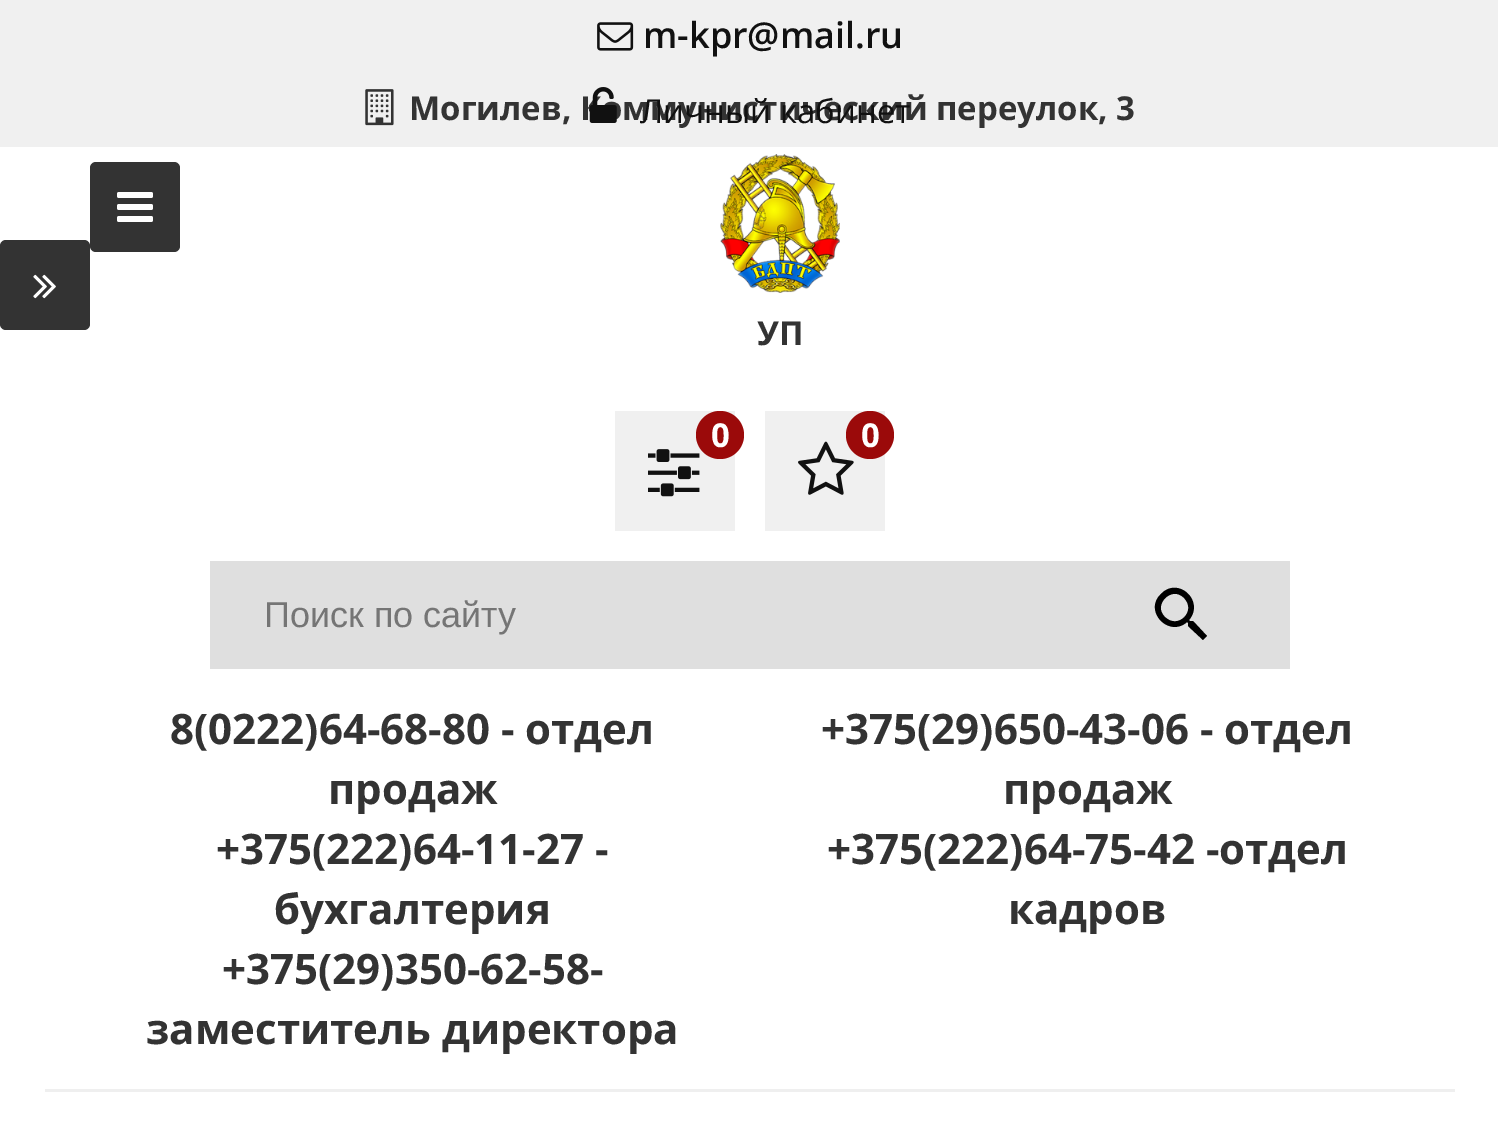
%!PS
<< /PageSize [1498 1126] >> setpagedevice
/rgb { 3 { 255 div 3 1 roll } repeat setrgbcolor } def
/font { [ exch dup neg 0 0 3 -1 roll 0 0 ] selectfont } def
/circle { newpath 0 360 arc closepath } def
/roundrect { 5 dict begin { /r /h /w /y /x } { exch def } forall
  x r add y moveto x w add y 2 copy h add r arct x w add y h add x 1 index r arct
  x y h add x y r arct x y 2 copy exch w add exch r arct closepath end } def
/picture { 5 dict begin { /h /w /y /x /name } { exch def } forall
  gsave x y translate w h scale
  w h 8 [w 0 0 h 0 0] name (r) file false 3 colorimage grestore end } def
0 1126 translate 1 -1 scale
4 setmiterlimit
255 255 255 rgb
0 0 1498 1126 rectfill
51 51 51 rgb
0 240 90 90 6 roundrect fill
(img/1.rgb) 33 274 23 25 picture
240 240 240 rgb
0 0 1498 147 rectfill
(img/2.rgb) 597 22 37 29 picture
(img/3.rgb) 365 89 29 37 picture
51 51 51 rgb
90 162 90 90 6 roundrect fill
(img/5.rgb) 117 192 36 30 picture
(img/6.rgb) 720 154 120 139 picture
240 240 240 rgb
615 411 120 120 rectfill
(img/7.rgb) 648 449 52 48 picture
155 10 10 rgb
720 435 24 circle fill
240 240 240 rgb
765 411 120 120 rectfill
(img/8.rgb) 798 441 56 54 picture
155 10 10 rgb
870 435 24 circle fill
223 223 223 rgb
210 561 1080 108 rectfill
0 0 0 rgb
1165 617 moveto 1178 630 1197 611 1184 598 curveto 1172 585 1152 605 1165 617 curveto closepath 1193 621 moveto 1207 636 lineto 1203 640 lineto 1188 626 lineto 1188 623 lineto 1187 622 lineto 1169 638 1143 611 1161 594 curveto 1178 576 1205 601 1189 620 curveto 1190 621 lineto closepath fill
239 239 239 rgb
45 1089 1410 3 rectfill
/OpenSans-SemiBold 36 font
17 17 17 rgb
643 48 moveto (m-kpr@mail.ru) show
/OpenSans-Bold 33 font
51 51 51 rgb
409 120 moveto (Могилев, Коммунистический переулок, 3) show
(img/4.rgb) 589 87 28 36 picture
/OpenSans-Regular 33 font
17 17 17 rgb
640 123 moveto (Личный кабинет) show
/OpenSans-Bold 33 font
51 51 51 rgb
757 345 moveto (УП) show
255 255 255 rgb
711 447 moveto (0) show
861 447 moveto (0) show
/LiberationSans-Regular 36 font
117 117 117 rgb
264 627 moveto (Поиск по сайту) show
/OpenSans-Bold 42 font
51 51 51 rgb
[
  [(8\(0222\)64-68-80 - отдел) 170 744]
  [(продаж) 328 804]
  [(+375\(29\)650-43-06 - отдел) 821 744]
  [(продаж) 1003 804]
  [(+375\(222\)64-11-27 -) 216 864]
  [(бухгалтерия) 274 924]
  [(+375\(222\)64-75-42 -отдел) 827 864]
  [(кадров) 1008 924]
  [(+375\(29\)350-62-58-) 222 984]
  [(заместитель директора) 146 1044]
] { aload pop moveto show } forall
showpage
